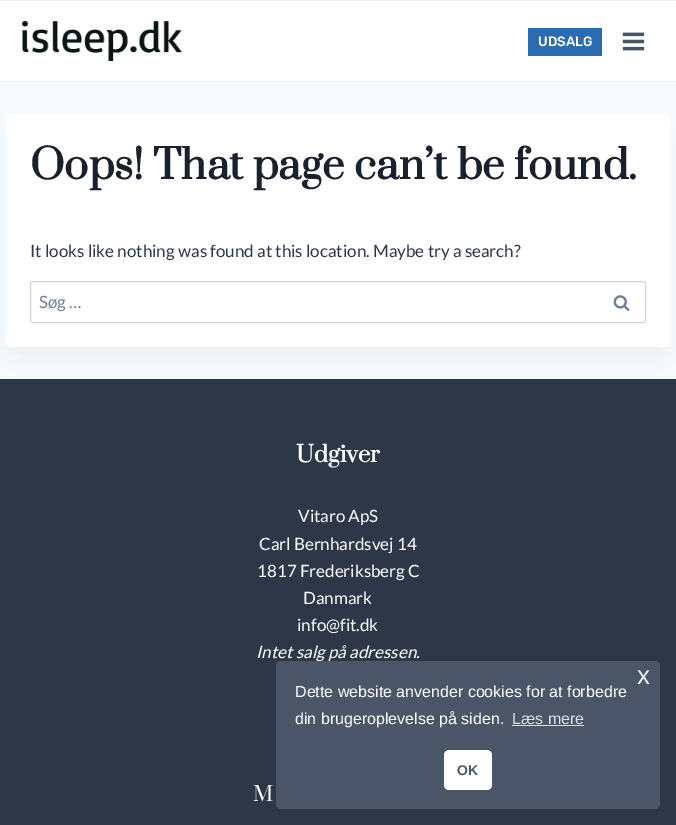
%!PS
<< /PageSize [676 825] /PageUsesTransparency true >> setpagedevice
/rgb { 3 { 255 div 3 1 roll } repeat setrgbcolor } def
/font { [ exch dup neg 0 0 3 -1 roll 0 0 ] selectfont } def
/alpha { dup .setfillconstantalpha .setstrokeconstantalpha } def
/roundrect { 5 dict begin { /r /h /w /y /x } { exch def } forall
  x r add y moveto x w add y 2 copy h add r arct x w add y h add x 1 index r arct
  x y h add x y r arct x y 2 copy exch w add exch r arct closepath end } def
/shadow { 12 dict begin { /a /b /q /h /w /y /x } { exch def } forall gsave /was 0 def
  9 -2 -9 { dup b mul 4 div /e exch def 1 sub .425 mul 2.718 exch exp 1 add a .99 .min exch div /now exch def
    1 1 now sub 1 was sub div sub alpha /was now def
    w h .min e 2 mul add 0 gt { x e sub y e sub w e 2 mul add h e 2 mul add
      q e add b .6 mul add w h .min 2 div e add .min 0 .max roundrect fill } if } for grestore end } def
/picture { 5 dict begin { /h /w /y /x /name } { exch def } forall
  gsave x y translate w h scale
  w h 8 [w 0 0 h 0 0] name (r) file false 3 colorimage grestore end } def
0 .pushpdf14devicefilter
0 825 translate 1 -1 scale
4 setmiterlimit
247 250 252 rgb
0 0 676 825 rectfill
[
  [0 1 676 80 255 255 255]
  [0 0 676 1 237 242 247]
  [0 81 676 1 237 242 247]
] { aload pop rgb rectfill } forall
(img/1.rgb) 22 21 160 40 picture
43 108 176 rgb
528 28 74 28 rectfill
(img/2.rgb) 622 32 23 19 picture
45 55 72 rgb
0 379 676 446 rectfill
0 0 0 rgb
16 139 644 213 0 12.5 0.05 shadow
255 255 255 rgb
6 114 664 233 4 roundrect fill
203 213 224 rgb
30.5 281.5 615 41 2.5 roundrect stroke
(img/3.rgb) 613 295 17 16 picture
/Rubik-Medium 13.5 font
255 255 255 rgb
538 46 moveto (UDSALG) show
/Prata-Bold 40 font
26 32 44 rgb
30 179 moveto (Oops! That page can’t be found.) show
/Lato-Regular 17 font
45 55 72 rgb
30 257 moveto (It looks like nothing was found at this location. Maybe try a search?) show
113 128 150 rgb
39 308 moveto (Søg …) show
/Prata-Bold 22 font
255 255 255 rgb
296 462 moveto (Udgiver) show
/Lato-Regular 17 font
[
  [(Vitaro ApS) 298 522]
  [(Carl Bernhardsvej 14) 259 550]
  [(1817 Frederiksberg C) 257 577]
  [(Danmark) 303 604]
  [(info@fit.dk) 297 631]
] { aload pop moveto show } forall
/Lato-Italic 17 font
256 658 moveto (Intet salg på adressen.) show
/Prata-Regular 20 font
253 801 moveto (M) show
74 86 103 rgb
276 661 384 148 5 roundrect fill
/LiberationSans-Regular 26 font
237 238 240 rgb
637 684 moveto (x) show
/LiberationSans-Regular 16 font
255 255 255 rgb
295 697 moveto (Dette website anvender cookies for at forbedre) show
295 724 moveto (din brugeroplevelse på siden.) show
219 221 225 rgb
512 724 moveto (Læs mere) show
512 725 72 1 rectfill
255 255 255 rgb
444 750 48 40 5 roundrect fill
/LiberationSans-Bold 14 font
74 86 103 rgb
457 775 moveto (OK) show
.poppdf14devicefilter showpage
